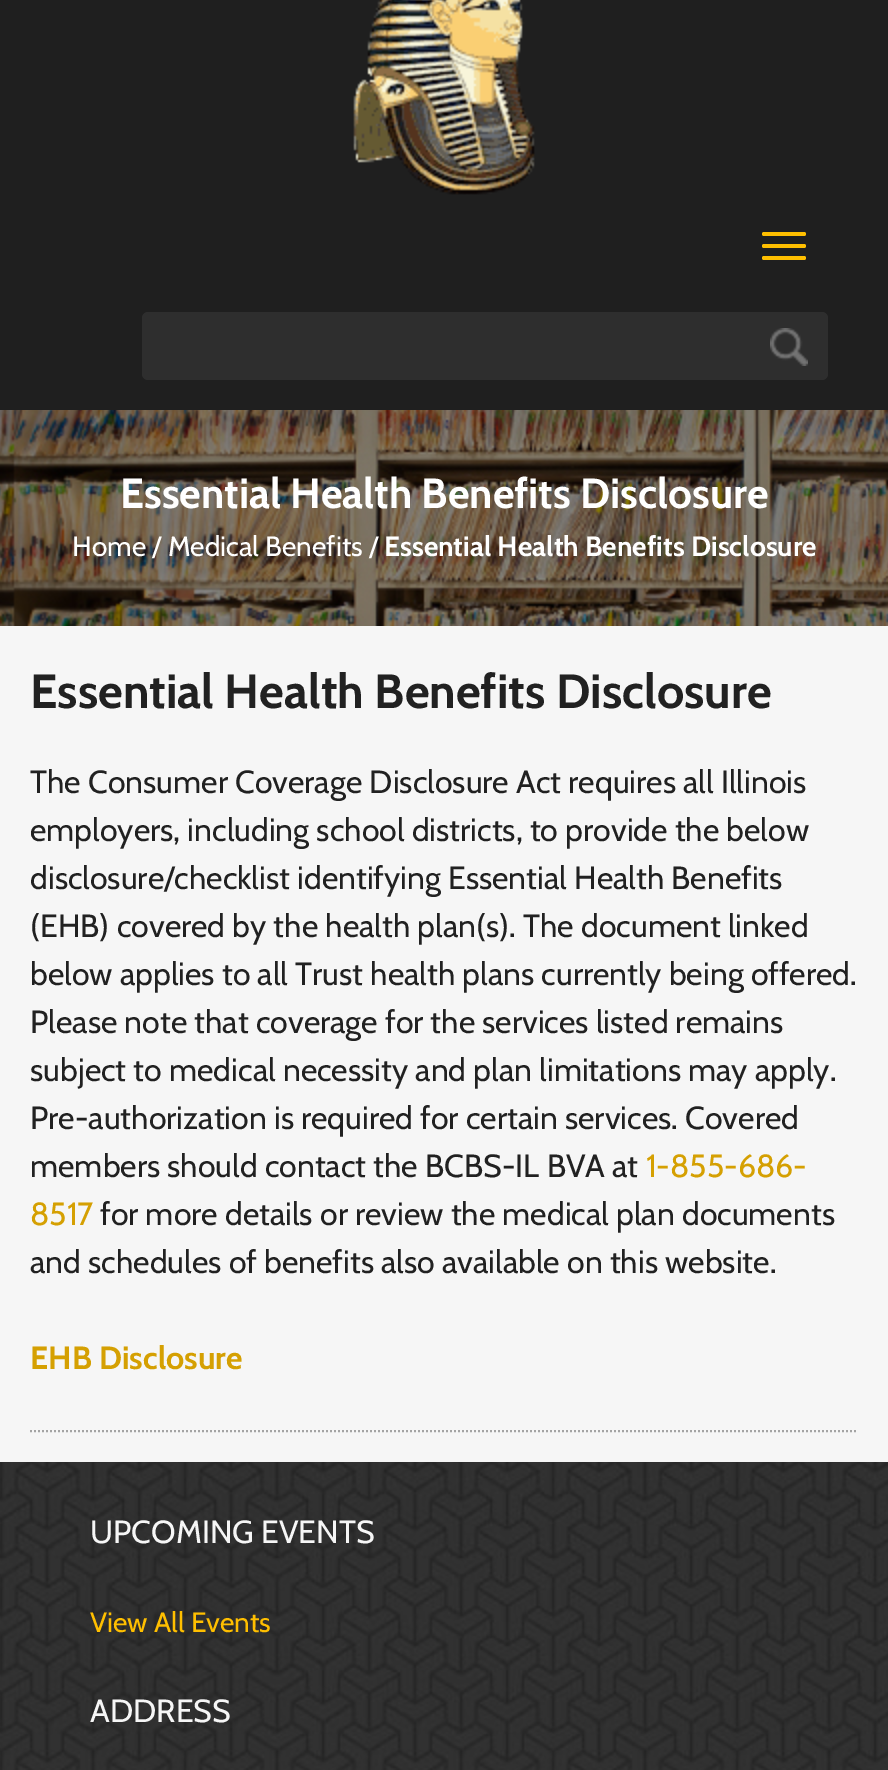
%!PS
<< /PageSize [888 1770] >> setpagedevice
/rgb { 3 { 255 div 3 1 roll } repeat setrgbcolor } def
/font { [ exch dup neg 0 0 3 -1 roll 0 0 ] selectfont } def
/roundrect { 5 dict begin { /r /h /w /y /x } { exch def } forall
  x r add y moveto x w add y 2 copy h add r arct x w add y h add x 1 index r arct
  x y h add x y r arct x y 2 copy exch w add exch r arct closepath end } def
/picture { 5 dict begin { /h /w /y /x /name } { exch def } forall
  gsave x y translate w h scale
  w h 8 [w 0 0 h 0 0] name (r) file false 3 colorimage grestore end } def
0 1770 translate 1 -1 scale
4 setmiterlimit
246 246 246 rgb
0 0 888 1770 rectfill
31 31 31 rgb
0 0 888 410 rectfill
(img/1.rgb) 353 0 182 195 picture
255 191 0 rgb
762 232 44 4 2 roundrect fill
762 244 44 4 2 roundrect fill
762 256 44 4 2 roundrect fill
46 46 46 rgb
142 312 686 68 6 roundrect fill
(img/2.rgb) 770 328 38 38 picture
(img/3.rgb) 0 410 888 216 picture
164 164 164 rgb
2 setlinewidth
[2 2] 0 setdash
30 1431 moveto 858 1431 lineto stroke
(img/4.rgb) 0 1462 888 308 picture
/Cabin-Bold 42 font
255 255 255 rgb
120 508 moveto (Essential Health Benefits Disclosure) show
/Cabin-Regular 28 font
72 556 moveto (Home / Medical Benefits /) show
/Cabin-Bold 28 font
384 556 moveto (Essential Health Benefits Disclosure) show
/Cabin-Bold 48 font
33 33 33 rgb
30 708 moveto (Essential Health Benefits Disclosure) show
/Cabin-Regular 32 font
[
  [(The Consumer Coverage Disclosure Act requires all Illinois) 30 793]
  [(employers, including school districts, to provide the below) 30 841]
  [(disclosure/checklist identifying Essential Health Benefits) 30 889]
  [(\(EHB\) covered by the health plan\(s\). The document linked) 30 937]
  [(below applies to all Trust health plans currently being offered.) 30 985]
  [(Please note that coverage for the services listed remains) 30 1033]
  [(subject to medical necessity and plan limitations may apply.) 30 1081]
  [(Pre-authorization is required for certain services. Covered) 30 1129]
  [(members should contact the BCBS-IL BVA at) 30 1177]
] { aload pop moveto show } forall
213 160 2 rgb
646 1177 moveto (1-855-686-) show
30 1225 moveto (8517) show
33 33 33 rgb
100 1225 moveto (for more details or review the medical plan documents) show
30 1273 moveto (and schedules of benefits also available on this website.) show
/Cabin-Bold 32 font
213 160 2 rgb
30 1369 moveto (EHB Disclosure) show
/Cabin-Regular 32 font
246 246 246 rgb
90 1543 moveto (UPCOMING EVENTS) show
/Cabin-Regular 28 font
255 191 0 rgb
90 1632 moveto (View All Events) show
/Cabin-Regular 32 font
246 246 246 rgb
90 1722 moveto (ADDRESS) show
showpage
